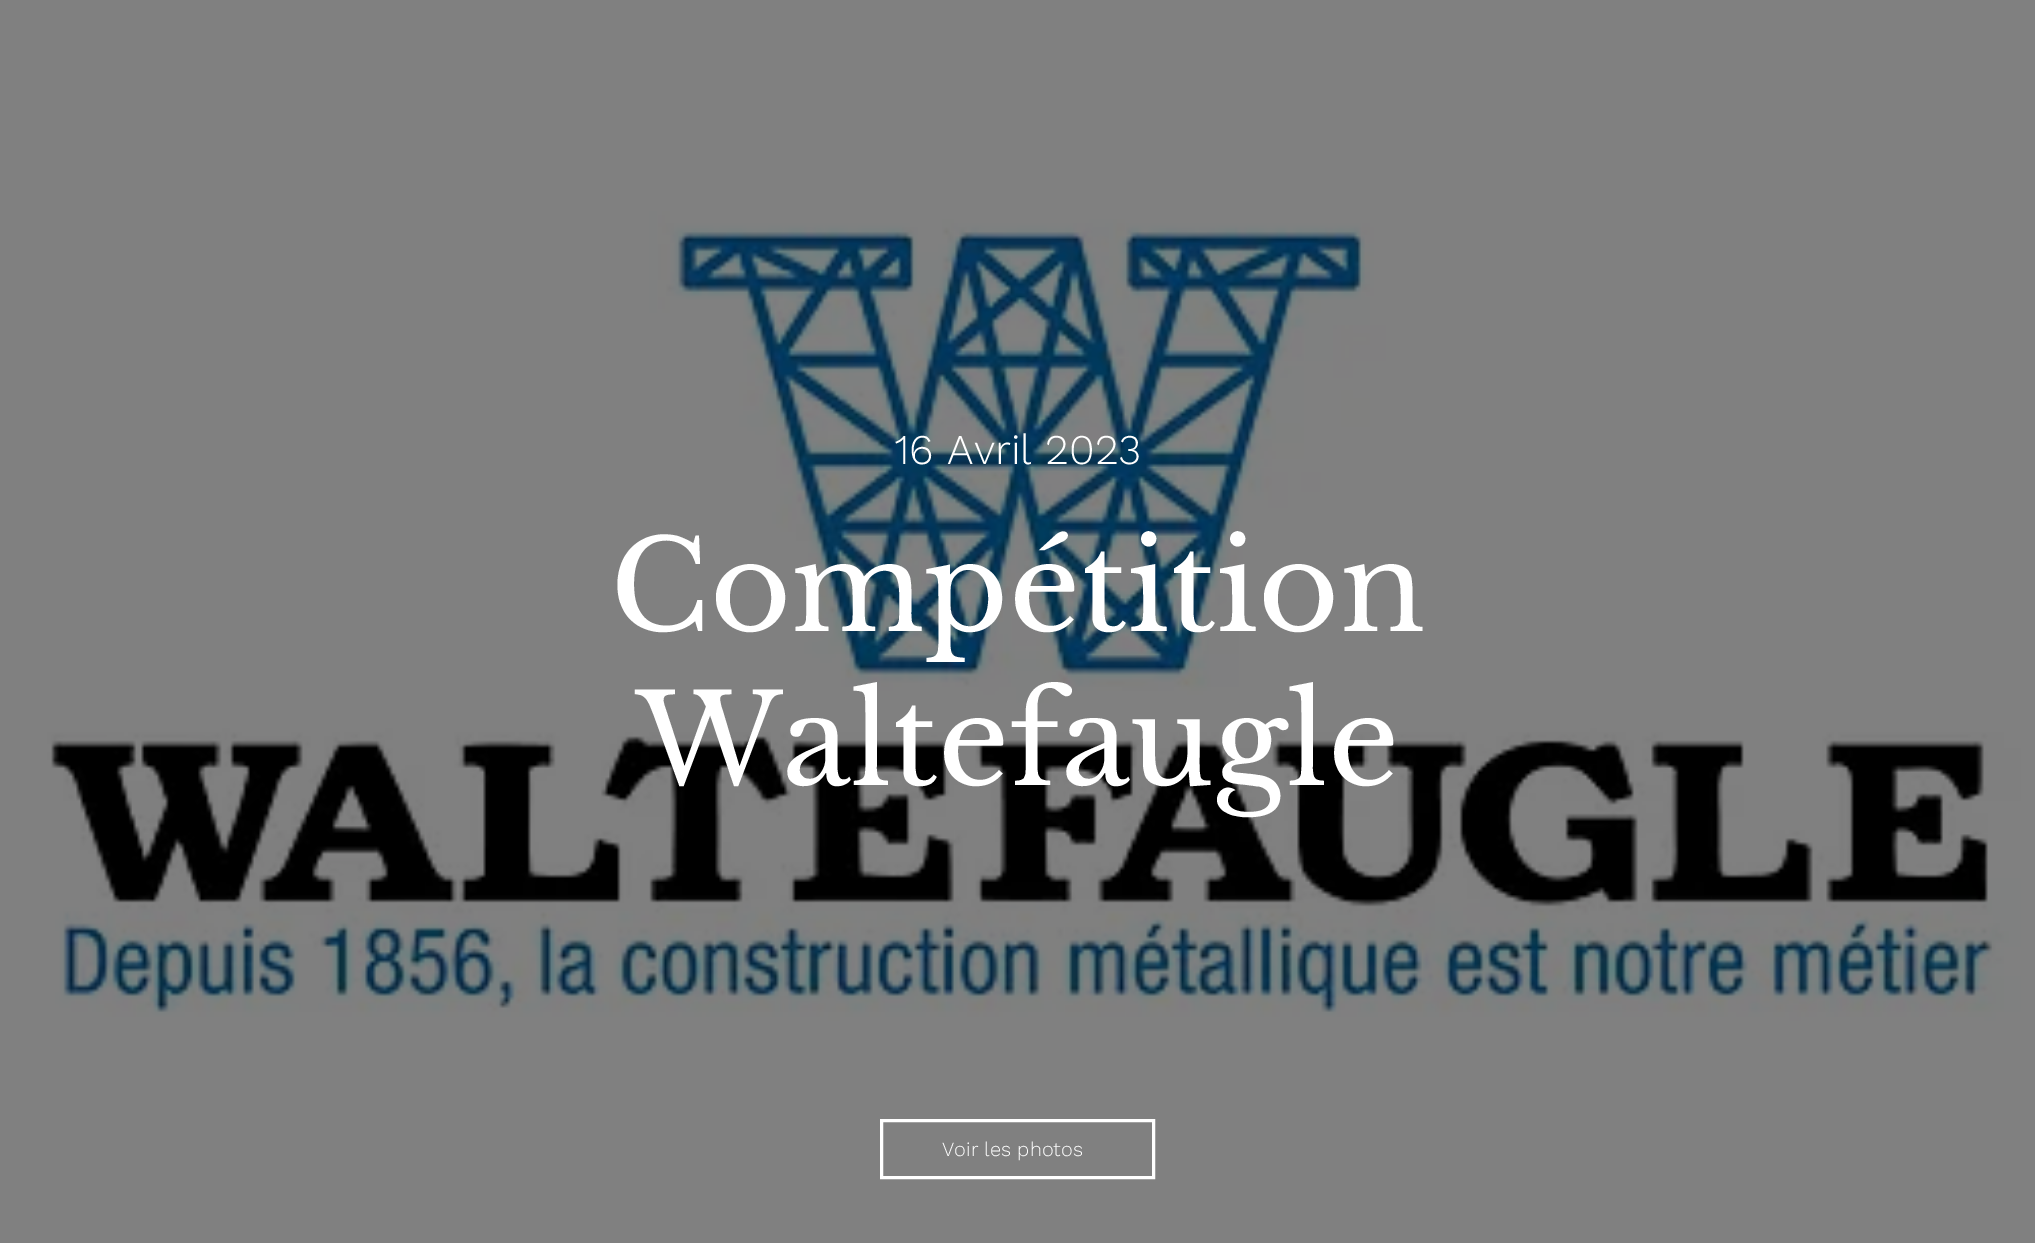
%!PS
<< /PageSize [2035 1243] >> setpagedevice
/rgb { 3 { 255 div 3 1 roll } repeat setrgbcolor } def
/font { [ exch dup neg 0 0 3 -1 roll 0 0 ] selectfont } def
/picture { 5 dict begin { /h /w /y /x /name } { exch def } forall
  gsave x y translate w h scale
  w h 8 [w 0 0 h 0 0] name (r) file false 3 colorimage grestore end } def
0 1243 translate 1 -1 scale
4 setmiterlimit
0 0 0 rgb
0 0 2035 1243 rectfill
(img/1.rgb) 0 0 2035 1243 picture
255 255 255 rgb
3 setlinewidth
881.5 1120.5 272 57 rectstroke
/WorkSans-Light 42.25 font
894 464 moveto (16 Avril 2023) show
/LibreBaskerville-Regular 124.25 font
610 631 moveto (Compétition) show
636 785 moveto (Waltefaugle) show
/WorkSans-Light 20 font
942 1156 moveto (Voir les photos) show
showpage
